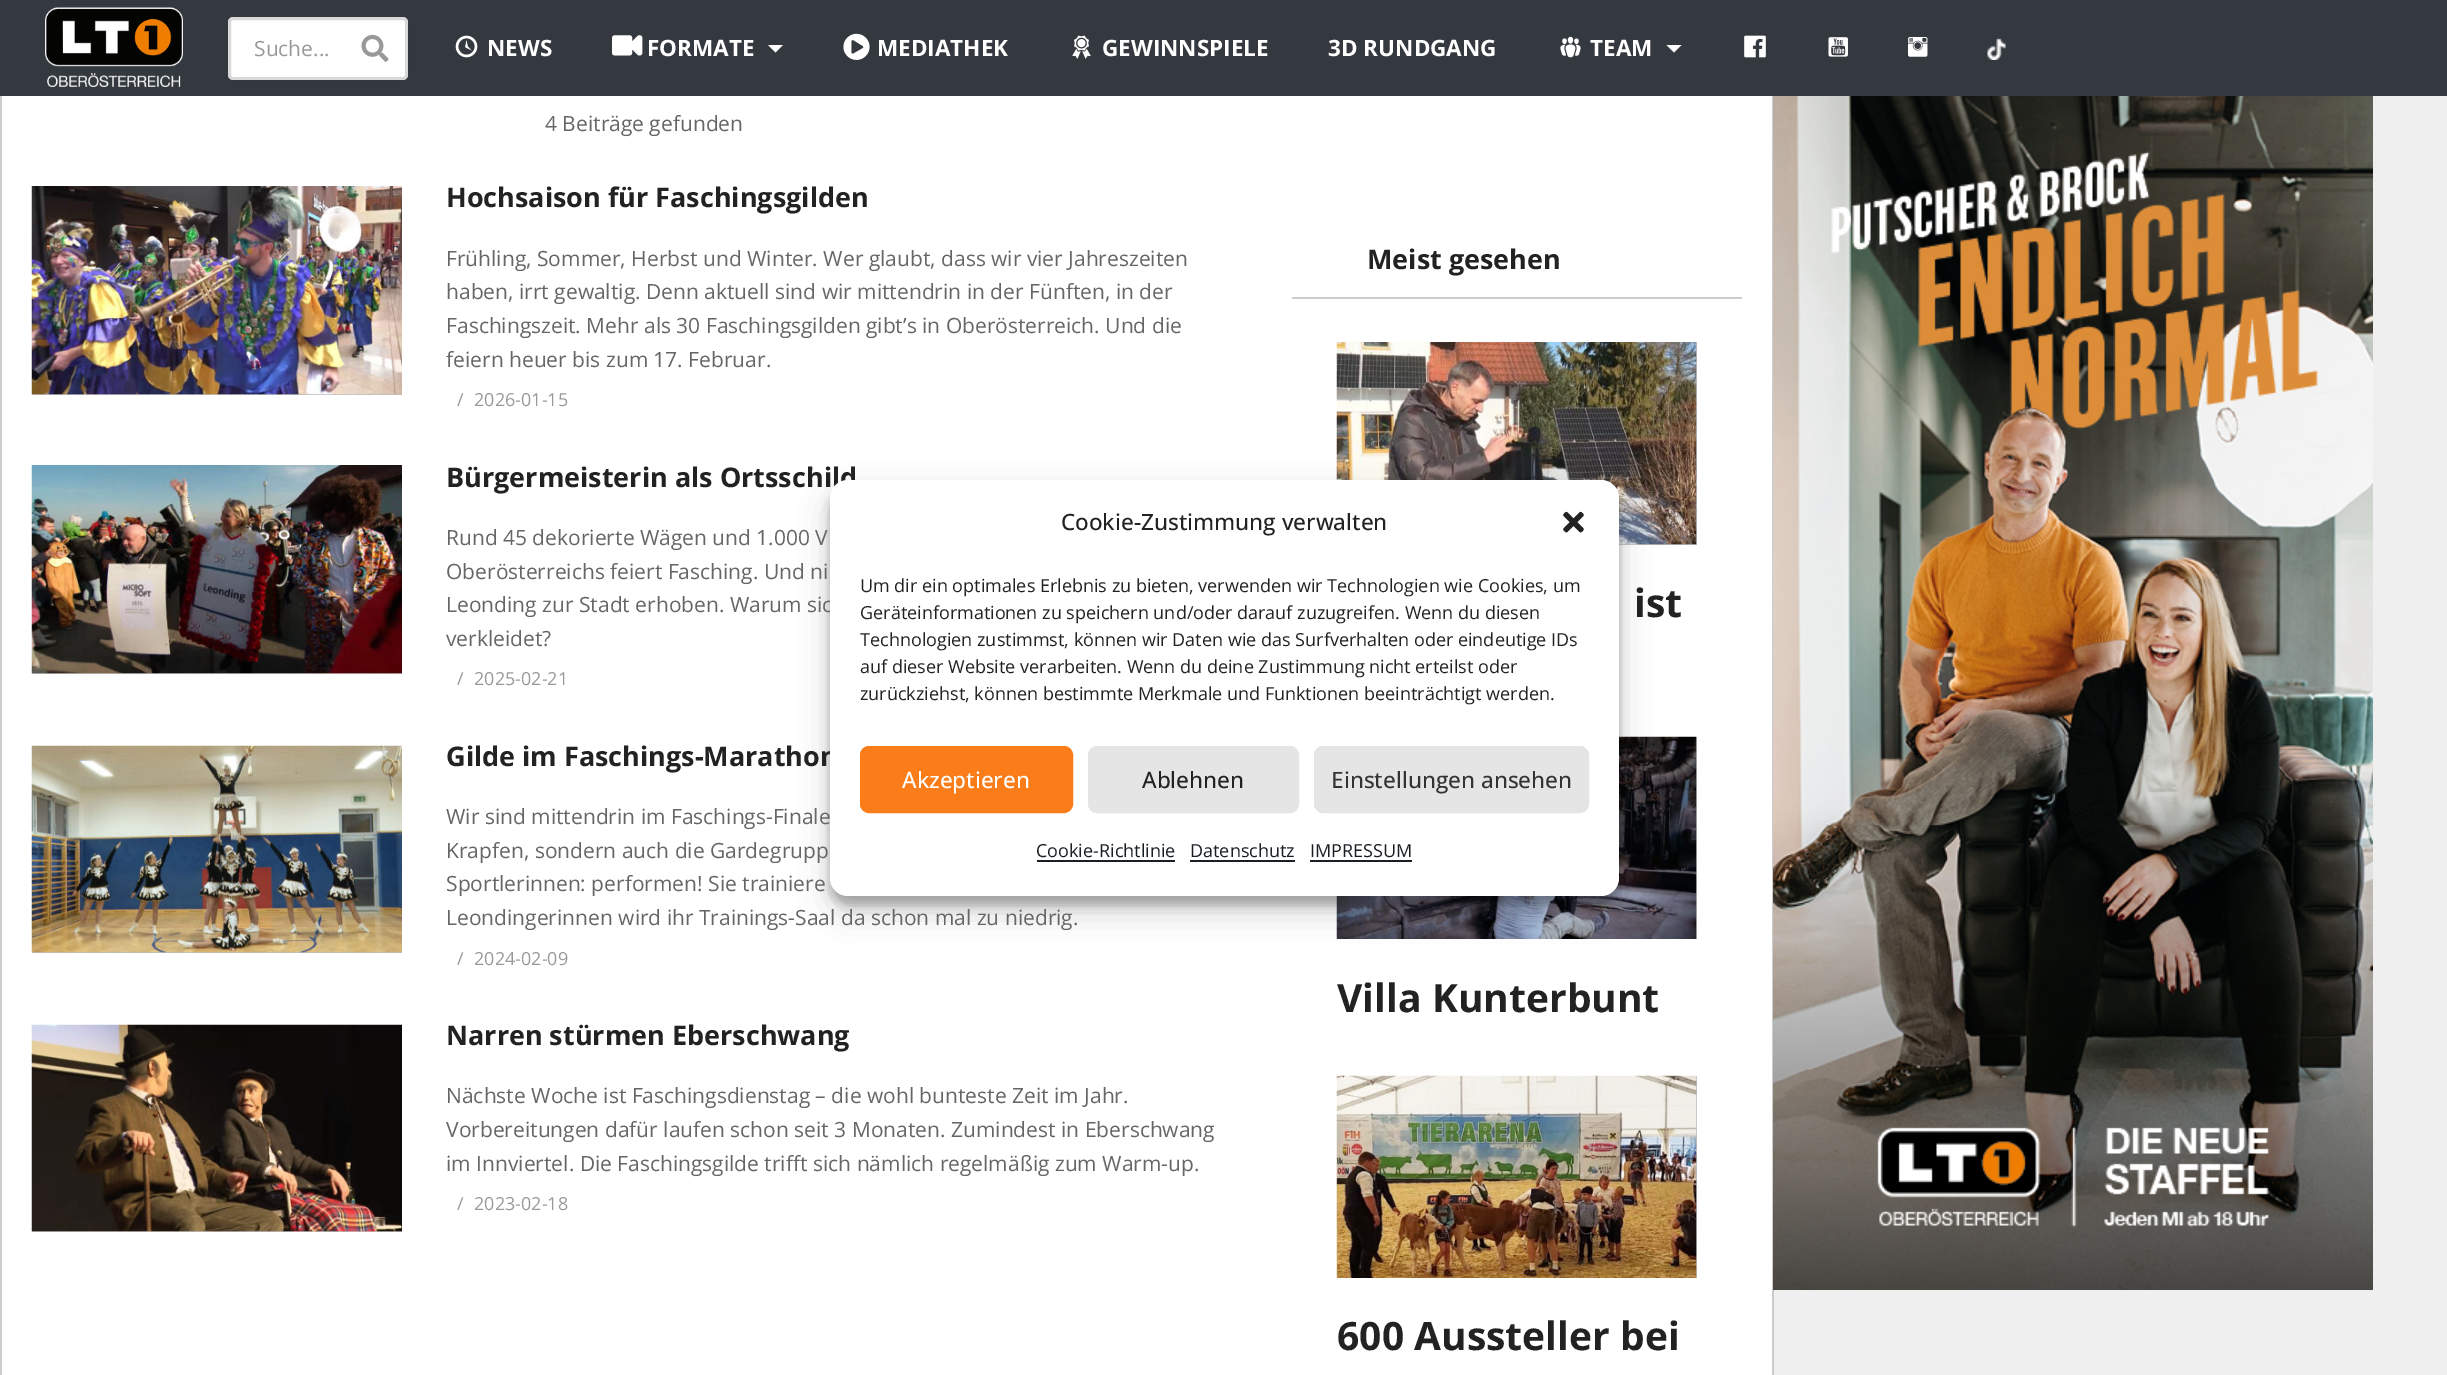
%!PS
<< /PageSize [2447 1375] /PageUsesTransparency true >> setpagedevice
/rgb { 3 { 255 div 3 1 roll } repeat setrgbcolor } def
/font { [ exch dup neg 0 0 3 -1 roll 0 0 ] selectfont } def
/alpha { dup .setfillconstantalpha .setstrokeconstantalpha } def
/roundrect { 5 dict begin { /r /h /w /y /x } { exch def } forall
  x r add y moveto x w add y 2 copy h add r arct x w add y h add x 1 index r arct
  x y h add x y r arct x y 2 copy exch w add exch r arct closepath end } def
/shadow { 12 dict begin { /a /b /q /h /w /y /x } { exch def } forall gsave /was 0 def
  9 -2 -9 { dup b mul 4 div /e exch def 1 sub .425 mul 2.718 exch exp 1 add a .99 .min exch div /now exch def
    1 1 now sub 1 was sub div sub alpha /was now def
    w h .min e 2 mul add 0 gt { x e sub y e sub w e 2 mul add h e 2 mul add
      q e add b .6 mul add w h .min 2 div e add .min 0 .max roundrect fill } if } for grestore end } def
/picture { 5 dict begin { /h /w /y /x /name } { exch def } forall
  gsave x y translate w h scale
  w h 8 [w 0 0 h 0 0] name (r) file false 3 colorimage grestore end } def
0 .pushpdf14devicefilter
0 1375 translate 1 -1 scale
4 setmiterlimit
239 239 239 rgb
0 0 2447 1375 rectfill
255 255 255 rgb
2 96 1770 1279 rectfill
52 57 63 rgb
0 0 2447 96 rectfill
(img/1.rgb) 45 7 138 80 picture
255 255 255 rgb
228 17 180 63 5 roundrect fill
0.15 alpha
0 0 0 rgb
3 setlinewidth
229.5 18.5 177 60 3.5 roundrect stroke
1 alpha
(img/2.rgb) 361 34 28 28 picture
(img/3.rgb) 455 35 23 23 picture
(img/4.rgb) 612 35 31 21 picture
255 255 255 rgb
768 45 moveto 783 45 lineto 775.5 52.5 lineto closepath fill
(img/5.rgb) 843 33 27 27 picture
(img/6.rgb) 1072 35 19 24 picture
(img/7.rgb) 1560 36 21 22 picture
1666.5 45 moveto 1681.5 45 lineto 1674 52.5 lineto closepath fill
(img/8.rgb) 1744 35 22 23 picture
(img/9.rgb) 1828 37 20 20 picture
(img/10.rgb) 1908 37 20 20 picture
(img/11.rgb) 1987 38 19 22 picture
[
  [1772 96 2 1279 204 204 204]
  [0 96 2 1279 204 204 204]
  [32 394 370 1 188 188 188]
] { aload pop rgb rectfill } forall
(img/12.rgb) 31 186 371 209 picture
32 673 370 1 rectfill
(img/13.rgb) 31 465 371 209 picture
32 952 370 1 rectfill
(img/14.rgb) 31 745 371 208 picture
32 1231 370 1 rectfill
(img/15.rgb) 31 1024 371 208 picture
204 204 204 rgb
1292 297 450 2 rectfill
188 188 188 rgb
1619 342 78 203 rectfill
(img/16.rgb) 1336 342 361 203 picture
1696 737 1 202 rectfill
(img/17.rgb) 1336 736 361 203 picture
1696 1076 1 202 rectfill
(img/18.rgb) 1336 1075 361 203 picture
(img/19.rgb) 1773 96 600 1194 picture
0 0 0 rgb
830 489 789 416 18 4.5 0.23 shadow
830 495 789 416 18 15 0.19 shadow
/OpenSans-Regular 21 font
153 153 153 rgb
254 56 moveto (Suche...) show
/OpenSans-Bold 22.5 font
255 255 255 rgb
[
  [(NEWS) 487 56]
  [(FORMATE) 647 56]
  [(MEDIATHEK) 877 56]
  [(GEWINNSPIELE) 1102 56]
  [(3D RUNDGANG) 1328 56]
  [(TEAM) 1590 56]
] { aload pop moveto show } forall
/OpenSans-Regular 21 font
102 102 102 rgb
545 131 moveto (4 Beiträge gefunden) show
/OpenSans-Bold 27 font
34 34 34 rgb
446 207 moveto (Hochsaison für Faschingsgilden) show
/OpenSans-Regular 21 font
102 102 102 rgb
[
  [(Frühling, Sommer, Herbst und Winter. Wer glaubt, dass wir vier Jahreszeiten) 446 266]
  [(haben, irrt gewaltig. Denn aktuell sind wir mittendrin in der Fünften, in der) 446 299]
  [(Faschingszeit. Mehr als 30 Faschingsgilden gibt’s in Oberösterreich. Und die) 446 333]
  [(feiern heuer bis zum 17. Februar.) 446 367]
] { aload pop moveto show } forall
/OpenSans-Regular 18 font
153 153 153 rgb
457 406 moveto (/) show
474 406 moveto (2026-01-15) show
/OpenSans-Bold 27 font
34 34 34 rgb
446 487 moveto (Bürgermeisterin als Ortsschild) show
/OpenSans-Regular 21 font
102 102 102 rgb
[
  [(Rund 45 dekorierte Wägen und 1.000 V) 446 545]
  [(Oberösterreichs feiert Fasching. Und ni) 446 579]
  [(Leonding zur Stadt erhoben. Warum sic) 446 612]
  [(verkleidet?) 446 646]
] { aload pop moveto show } forall
/OpenSans-Regular 18 font
153 153 153 rgb
457 685 moveto (/) show
474 685 moveto (2025-02-21) show
/OpenSans-Bold 27 font
34 34 34 rgb
446 766 moveto (Gilde im Faschings-Marathon) show
/OpenSans-Regular 21 font
102 102 102 rgb
[
  [(Wir sind mittendrin im Faschings-Finale) 446 824]
  [(Krapfen, sondern auch die Gardegrupp) 446 858]
  [(Sportlerinnen: performen! Sie trainiere) 446 891]
  [(Leondingerinnen wird ihr Trainings-Saal da schon mal zu niedrig.) 446 925]
] { aload pop moveto show } forall
/OpenSans-Regular 18 font
153 153 153 rgb
457 965 moveto (/) show
474 965 moveto (2024-02-09) show
/OpenSans-Bold 27 font
34 34 34 rgb
446 1045 moveto (Narren stürmen Eberschwang) show
/OpenSans-Regular 21 font
102 102 102 rgb
[
  [(Nächste Woche ist Faschingsdienstag – die wohl bunteste Zeit im Jahr.) 446 1103]
  [(Vorbereitungen dafür laufen schon seit 3 Monaten. Zumindest in Eberschwang) 446 1137]
  [(im Innviertel. Die Faschingsgilde trifft sich nämlich regelmäßig zum Warm-up.) 446 1171]
] { aload pop moveto show } forall
/OpenSans-Regular 18 font
153 153 153 rgb
457 1210 moveto (/) show
474 1210 moveto (2023-02-18) show
/OpenSans-Bold 27 font
34 34 34 rgb
1367 269 moveto (Meist gesehen) show
/OpenSans-Bold 39 font
[
  [(ist) 1634 617]
  [(Villa Kunterbunt) 1337 1012]
  [(600 Aussteller bei) 1337 1350]
] { aload pop moveto show } forall
255 255 255 rgb
830 480 789 416 18 roundrect fill
/OpenSans-Medium 22.5 font
34 34 34 rgb
1061 530 moveto (Cookie-Zustimmung verwalten) show
(img/20.rgb) 1563 511 21 22 picture
/OpenSans-Regular 18 font
[
  [(Um dir ein optimales Erlebnis zu bieten, verwenden wir Technologien wie Cookies, um) 860 592]
  [(Geräteinformationen zu speichern und/oder darauf zuzugreifen. Wenn du diesen) 860 619]
  [(Technologien zustimmst, können wir Daten wie das Surfverhalten oder eindeutige IDs) 860 646]
  [(auf dieser Website verarbeiten. Wenn du deine Zustimmung nicht erteilst oder) 860 673]
  [(zurückziehst, können bestimmte Merkmale und Funktionen beeinträchtigt werden.) 860 700]
] { aload pop moveto show } forall
250 125 25 rgb
861 747 211 65 8 roundrect gsave fill grestore
2 setlinewidth
stroke
/OpenSans-Medium 22.5 font
255 255 255 rgb
902 788 moveto (Akzeptieren) show
229 229 229 rgb
1089 747 209 65 8 roundrect gsave fill grestore
stroke
34 34 34 rgb
1142 788 moveto (Ablehnen) show
229 229 229 rgb
1315 747 273 65 8 roundrect gsave fill grestore
stroke
51 51 51 rgb
1331 788 moveto (Einstellungen ansehen) show
/OpenSans-Regular 18 font
25 30 35 rgb
1036 857 moveto (Cookie-Richtlinie) show
1037 860 138 2 rectfill
1190 857 moveto (Datenschutz) show
1190 860 105 2 rectfill
1310 857 moveto (IMPRESSUM) show
1310 860 102 2 rectfill
.poppdf14devicefilter showpage
